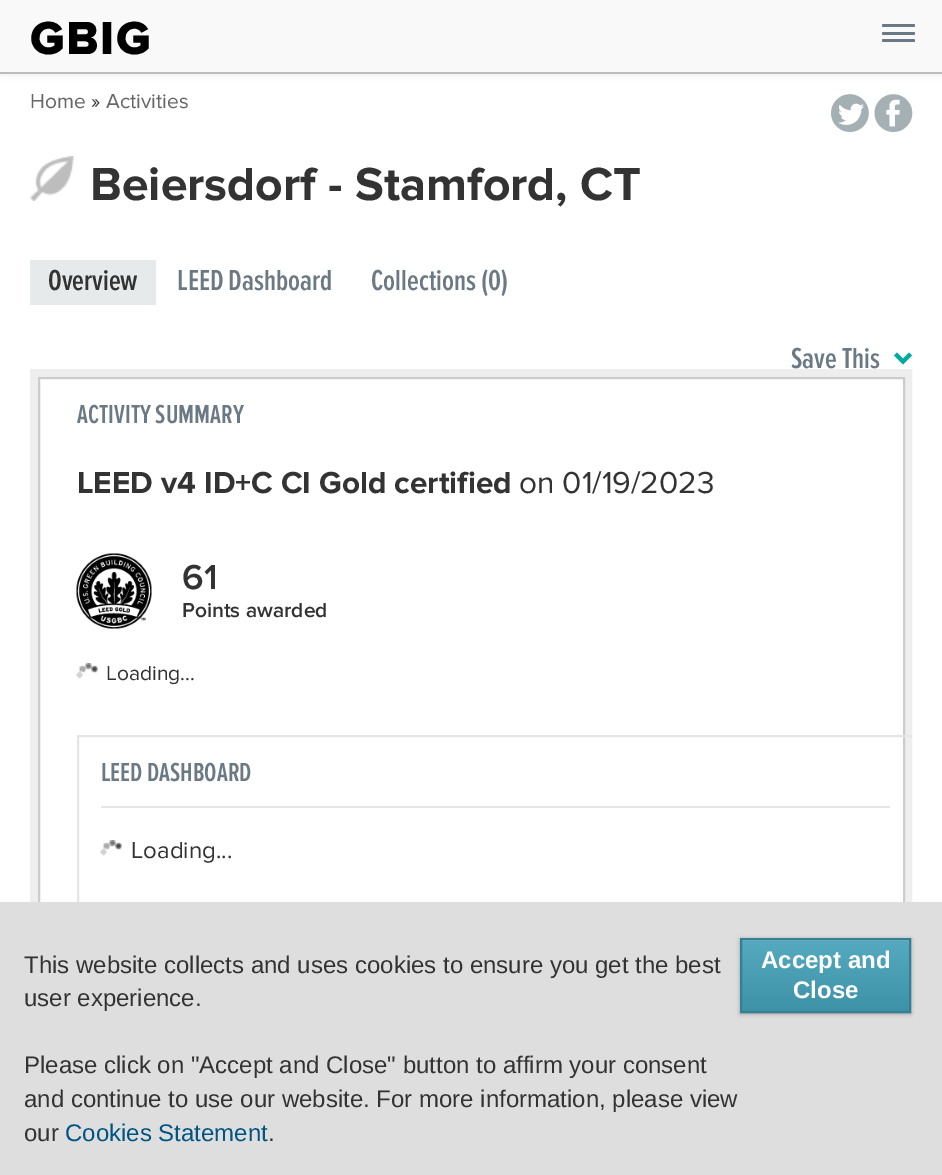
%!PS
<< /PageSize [942 1175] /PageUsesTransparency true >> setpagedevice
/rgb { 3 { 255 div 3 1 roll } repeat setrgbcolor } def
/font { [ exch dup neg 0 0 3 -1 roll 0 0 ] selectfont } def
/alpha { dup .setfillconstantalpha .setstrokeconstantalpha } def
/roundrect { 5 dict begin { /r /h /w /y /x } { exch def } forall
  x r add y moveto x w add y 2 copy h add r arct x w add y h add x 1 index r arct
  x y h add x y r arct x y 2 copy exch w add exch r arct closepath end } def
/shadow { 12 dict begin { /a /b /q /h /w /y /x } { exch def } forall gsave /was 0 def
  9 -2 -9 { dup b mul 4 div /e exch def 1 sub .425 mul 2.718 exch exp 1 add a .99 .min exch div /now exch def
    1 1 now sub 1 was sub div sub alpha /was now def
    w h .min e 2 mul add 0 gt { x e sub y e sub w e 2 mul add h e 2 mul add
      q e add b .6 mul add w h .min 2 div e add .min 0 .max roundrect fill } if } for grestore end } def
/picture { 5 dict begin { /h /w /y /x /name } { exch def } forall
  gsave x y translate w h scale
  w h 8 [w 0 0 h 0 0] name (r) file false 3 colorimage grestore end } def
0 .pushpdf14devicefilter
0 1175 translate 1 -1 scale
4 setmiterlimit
255 255 255 rgb
0 0 942 1175 rectfill
0 0 0 rgb
0 2 942 73 0 3 0.07 shadow
249 249 249 rgb
0 0 942 72 rectfill
188 188 188 rgb
0 72 942 2 rectfill
107 121 132 rgb
882 24 33 3 1.5 roundrect fill
882 32 33 3 1.5 roundrect fill
882 39 33 3 1.5 roundrect fill
(img/1.rgb) 831 94 38 38 picture
(img/2.rgb) 874 94 39 38 picture
(img/3.rgb) 30 156 44 45 picture
231 234 235 rgb
30 260 126 45 rectfill
(img/4.rgb) 894 352 18 13 picture
238 238 238 rgb
8 setlinewidth
34 373 874 561 rectstroke
204 204 204 rgb
2 setlinewidth
39 378 865 551 rectstroke
(img/5.rgb) 76 553 76 76 picture
(img/6.rgb) 76 663 22 16 picture
gsave
30 369 882 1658 rectclip
229 229 229 rgb
78 736 835 169 rectstroke
grestore
229 229 229 rgb
101 806 789 2 rectfill
(img/6.rgb) 100 840 22 16 picture
223 222 223 rgb
0 902 942 273 rectfill
0 0 0 rgb
740 939 171 75 0 2 0.28 shadow
gsave 742 941 moveto 909 941 lineto 909 1011 lineto 742 1011 lineto closepath clip newpath
<< /ShadingType 2 /ColorSpace /DeviceRGB /Coords [741 939 741 1011] /Extend [true true] /Function << /FunctionType 2 /Domain [0 1] /C0 [0.341 0.671 0.753] /C1 [0.239 0.573 0.659] /N 1 >> >> shfill grestore
119 186 204 rgb
741 940 168 1 rectfill
52 127 147 rgb
741 939 169 73 rectstroke
/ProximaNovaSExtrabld-ExtraBold 48 font
0 0 0 rgb
30 54 moveto 1.5 0 (GBIG) ashow
/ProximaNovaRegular-Regular 21 font
102 102 102 rgb
30 108 moveto (Home) show
51 51 51 rgb
91 108 moveto (») show
102 102 102 rgb
106 108 moveto (Activities) show
/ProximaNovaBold-Bold 48 font
51 51 51 rgb
90 200 moveto (Beiersdorf - Stamford, CT) show
/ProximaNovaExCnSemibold-SemiBold 30 font
48 290 moveto (Overview) show
107 121 132 rgb
[
  [(LEED Dashboard) 177 290]
  [(Collections \(0\)) 371 290]
  [(Save This) 791 368]
] { aload pop moveto show } forall
/ProximaNovaExCnSemibold-SemiBold 27 font
77 423 moveto (ACTIVITY SUMMARY) show
/ProximaNovaBold-Bold 31.5 font
51 51 51 rgb
77 493 moveto (LEED v4 ID+C CI Gold certified) show
/ProximaNovaRegular-Regular 31.5 font
519 493 moveto (on 01/19/2023) show
/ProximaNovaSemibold-SemiBold 36 font
182 589 moveto (61) show
/ProximaNovaSemibold-SemiBold 21 font
182 617 moveto (Points awarded) show
/ProximaNovaRegular-Regular 21 font
106 680 moveto (Loading...) show
/ProximaNovaExCnSemibold-SemiBold 27 font
107 121 132 rgb
101 781 moveto (LEED DASHBOARD) show
/ProximaNovaRegular-Regular 24 font
51 51 51 rgb
131 858 moveto (Loading...) show
/LiberationSans-Regular 24 font
[
  [(This website collects and uses cookies to ensure you get the best) 24 973]
  [(user experience.) 24 1006]
  [(Please click on "Accept and Close" button to affirm your consent) 24 1073]
  [(and continue to use our website. For more information, please view) 24 1107]
  [(our) 24 1141]
] { aload pop moveto show } forall
0 85 128 rgb
65 1141 moveto (Cookies Statement) show
51 51 51 rgb
268 1141 moveto (.) show
/LiberationSans-Bold 24 font
255 255 255 rgb
761 968 moveto (Accept and) show
793 998 moveto (Close) show
.poppdf14devicefilter showpage
